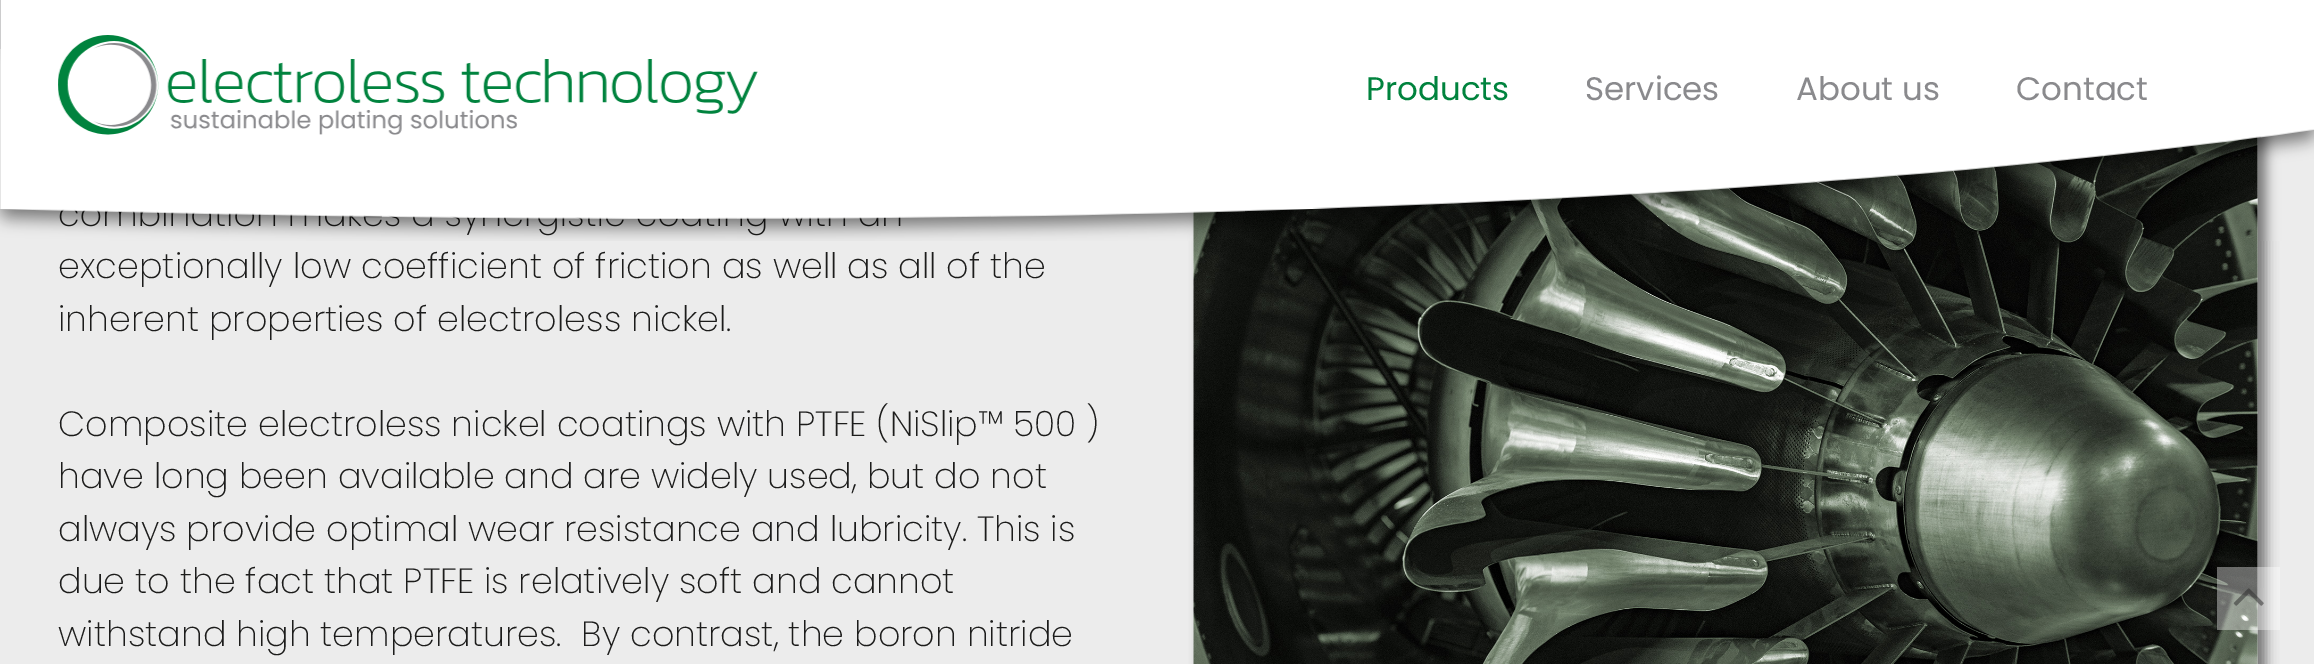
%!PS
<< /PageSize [2314 664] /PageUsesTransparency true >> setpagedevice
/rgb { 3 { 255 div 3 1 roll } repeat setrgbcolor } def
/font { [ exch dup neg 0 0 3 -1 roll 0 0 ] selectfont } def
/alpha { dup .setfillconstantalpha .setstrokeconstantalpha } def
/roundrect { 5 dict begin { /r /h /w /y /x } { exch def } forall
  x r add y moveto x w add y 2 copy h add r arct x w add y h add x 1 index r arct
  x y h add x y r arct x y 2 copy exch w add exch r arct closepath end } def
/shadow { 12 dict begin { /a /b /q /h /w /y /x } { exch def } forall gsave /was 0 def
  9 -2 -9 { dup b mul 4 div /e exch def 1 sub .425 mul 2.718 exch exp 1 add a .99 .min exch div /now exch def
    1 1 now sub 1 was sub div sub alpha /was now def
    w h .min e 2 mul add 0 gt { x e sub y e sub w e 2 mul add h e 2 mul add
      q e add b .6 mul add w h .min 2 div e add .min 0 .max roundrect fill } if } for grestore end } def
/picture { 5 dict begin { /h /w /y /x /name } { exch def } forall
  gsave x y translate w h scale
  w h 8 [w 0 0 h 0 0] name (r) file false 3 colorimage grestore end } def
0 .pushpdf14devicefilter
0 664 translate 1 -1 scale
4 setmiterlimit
255 255 255 rgb
0 0 2314 664 rectfill
(img/1.rgb) 0 0 1 49 picture
236 236 236 rgb
0 49 2314 615 rectfill
0 0 0 rgb
5 -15 2305 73 0 5 0.55 shadow
1202 102 1064 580 0 6 0.5 shadow
(img/4.rgb) 1193 136 1065 528 picture
(img/2.rgb) 0 0 2314 241 picture
(img/3.rgb) 58 35 700 100 picture
0.38 alpha
255 255 255 rgb
2217 567 63 63 rectfill
1 alpha
(img/5.rgb) 2233 588 31 18 picture
/Poppins-Regular 32.5 font
0 131 61 rgb
1366 100 moveto (Products) show
138 138 141 rgb
[
  [(Services) 1585 100]
  [(About us) 1796 100]
  [(Contact) 2016 100]
] { aload pop moveto show } forall
/Poppins-ExtraLight 35 font
28 28 27 rgb
[
  [(exceptionally low coefficient of friction as well as all of the) 58 278]
  [(inherent properties of electroless nickel.) 58 331]
  [(Composite electroless nickel coatings with PTFE \(NiSlip™ 500 \)) 58 436]
  [(have long been available and are widely used, but do not) 58 488]
  [(always provide optimal wear resistance and lubricity. This is) 58 541]
  [(due to the fact that PTFE is relatively soft and cannot) 58 593]
  [(withstand high temperatures.  By contrast, the boron nitride) 58 646]
] { aload pop moveto show } forall
.poppdf14devicefilter showpage
